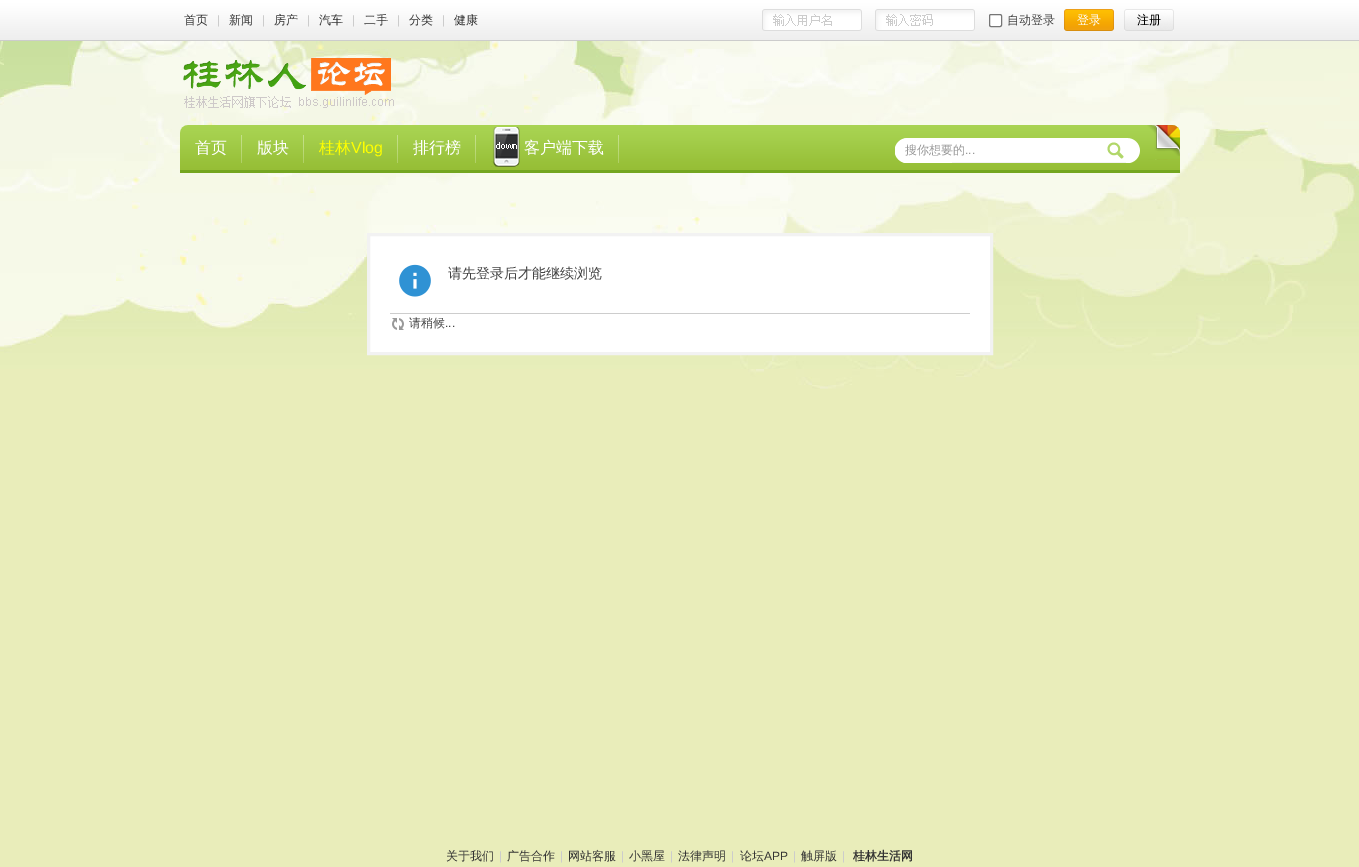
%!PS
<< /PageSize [1359 867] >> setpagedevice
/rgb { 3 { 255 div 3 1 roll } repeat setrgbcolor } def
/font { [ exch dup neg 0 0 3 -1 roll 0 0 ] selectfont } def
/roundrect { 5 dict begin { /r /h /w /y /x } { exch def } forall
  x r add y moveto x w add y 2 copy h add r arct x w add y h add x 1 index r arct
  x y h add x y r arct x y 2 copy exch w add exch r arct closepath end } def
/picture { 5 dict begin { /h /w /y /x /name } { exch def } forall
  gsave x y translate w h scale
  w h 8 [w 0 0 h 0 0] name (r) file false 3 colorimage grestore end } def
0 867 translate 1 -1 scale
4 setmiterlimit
233 237 186 rgb
0 0 1359 867 rectfill
(img/1.rgb) 0 41 1359 348 picture
(img/2.rgb) 0 0 1359 40 picture
204 204 204 rgb
0 40 1359 1 rectfill
(img/3.rgb) 762 9 100 22 picture
(img/4.rgb) 875 9 100 22 picture
255 255 255 rgb
989.5 14.5 12 12 1.5 roundrect gsave fill grestore
118 118 118 rgb
stroke
(img/5.rgb) 1064 9 50 22 picture
(img/6.rgb) 1124 9 50 22 picture
(img/7.rgb) 183 58 211 50 picture
(img/8.rgb) 180 125 1000 48 picture
(img/9.rgb) 241 135 1 28 picture
(img/9.rgb) 303 135 1 28 picture
(img/9.rgb) 397 135 1 28 picture
(img/9.rgb) 475 135 1 28 picture
(img/9.rgb) 618 135 1 28 picture
(img/10.rgb) 491 127 29 40 picture
(img/11.rgb) 1147 125 33 35 picture
(img/12.rgb) 895 138 205 25 picture
(img/13.rgb) 1100 138 40 25 picture
255 255 255 rgb
368.5 234.5 moveto 991.5 234.5 lineto 991.5 353.5 lineto 368.5 353.5 lineto closepath gsave fill grestore
242 242 242 rgb
3 setlinewidth
stroke
(img/14.rgb) 399 264 32 33 picture
205 205 205 rgb
390 313 580 1 rectfill
(img/15.rgb) 392 318 12 12 picture
/WenQuanYiZenHei-Medium 12 font
51 51 51 rgb
184 24 moveto (首页) show
/LiberationSans-Regular 12 font
204 204 204 rgb
217 24 moveto (|) show
/WenQuanYiZenHei-Medium 12 font
51 51 51 rgb
229 24 moveto (新闻) show
/LiberationSans-Regular 12 font
204 204 204 rgb
262 24 moveto (|) show
/WenQuanYiZenHei-Medium 12 font
51 51 51 rgb
274 24 moveto (房产) show
/LiberationSans-Regular 12 font
204 204 204 rgb
307 24 moveto (|) show
/WenQuanYiZenHei-Medium 12 font
51 51 51 rgb
319 24 moveto (汽车) show
/LiberationSans-Regular 12 font
204 204 204 rgb
352 24 moveto (|) show
/WenQuanYiZenHei-Medium 12 font
51 51 51 rgb
364 24 moveto (二手) show
/LiberationSans-Regular 12 font
204 204 204 rgb
397 24 moveto (|) show
/WenQuanYiZenHei-Medium 12 font
51 51 51 rgb
409 24 moveto (分类) show
/LiberationSans-Regular 12 font
204 204 204 rgb
442 24 moveto (|) show
/WenQuanYiZenHei-Medium 12 font
51 51 51 rgb
454 24 moveto (健康) show
68 68 68 rgb
1007 24 moveto (自动登录) show
255 255 255 rgb
1077 24 moveto (登录) show
0 0 0 rgb
1137 24 moveto (注册) show
/WenQuanYiZenHei-Medium 16 font
255 255 255 rgb
195 153 moveto (首页) show
257 153 moveto (版块) show
255 255 0 rgb
319 153 moveto (桂林) show
/LiberationSans-Regular 16 font
351 153 moveto (Vlog) show
/WenQuanYiZenHei-Medium 16 font
255 255 255 rgb
413 153 moveto (排行榜) show
524 153 moveto (客户端下载) show
gsave
905 138 195 25 rectclip
/WenQuanYiZenHei-Medium 12 font
153 153 153 rgb
905 154 moveto (搜你想要的) show
grestore
/LiberationSans-Regular 12 font
153 153 153 rgb
965 154 moveto (...) show
/WenQuanYiZenHei-Medium 14 font
68 68 68 rgb
448 278 moveto (请先登录后才能继续浏览) show
/WenQuanYiZenHei-Medium 12 font
409 327 moveto (请稍候) show
/LiberationSans-Regular 12 font
445 327 moveto (...) show
/WenQuanYiZenHei-Medium 12 font
51 51 51 rgb
446 860 moveto (关于我们) show
/LiberationSans-Regular 12 font
204 204 204 rgb
499 860 moveto (|) show
/WenQuanYiZenHei-Medium 12 font
51 51 51 rgb
507 860 moveto (广告合作) show
/LiberationSans-Regular 12 font
204 204 204 rgb
560 860 moveto (|) show
/WenQuanYiZenHei-Medium 12 font
51 51 51 rgb
568 860 moveto (网站客服) show
/LiberationSans-Regular 12 font
204 204 204 rgb
621 860 moveto (|) show
/WenQuanYiZenHei-Medium 12 font
51 51 51 rgb
629 860 moveto (小黑屋) show
/LiberationSans-Regular 12 font
204 204 204 rgb
670 860 moveto (|) show
/WenQuanYiZenHei-Medium 12 font
51 51 51 rgb
678 860 moveto (法律声明) show
/LiberationSans-Regular 12 font
204 204 204 rgb
731 860 moveto (|) show
/WenQuanYiZenHei-Medium 12 font
51 51 51 rgb
740 860 moveto (论坛) show
/LiberationSans-Regular 12 font
764 860 moveto (APP) show
204 204 204 rgb
793 860 moveto (|) show
/WenQuanYiZenHei-Medium 12 font
51 51 51 rgb
801 860 moveto (触屏版) show
/LiberationSans-Regular 12 font
204 204 204 rgb
842 860 moveto (|) show
/WenQuanYiZenHei-Bold 12 font
51 51 51 rgb
853 860 moveto (桂林生活网) show
showpage
